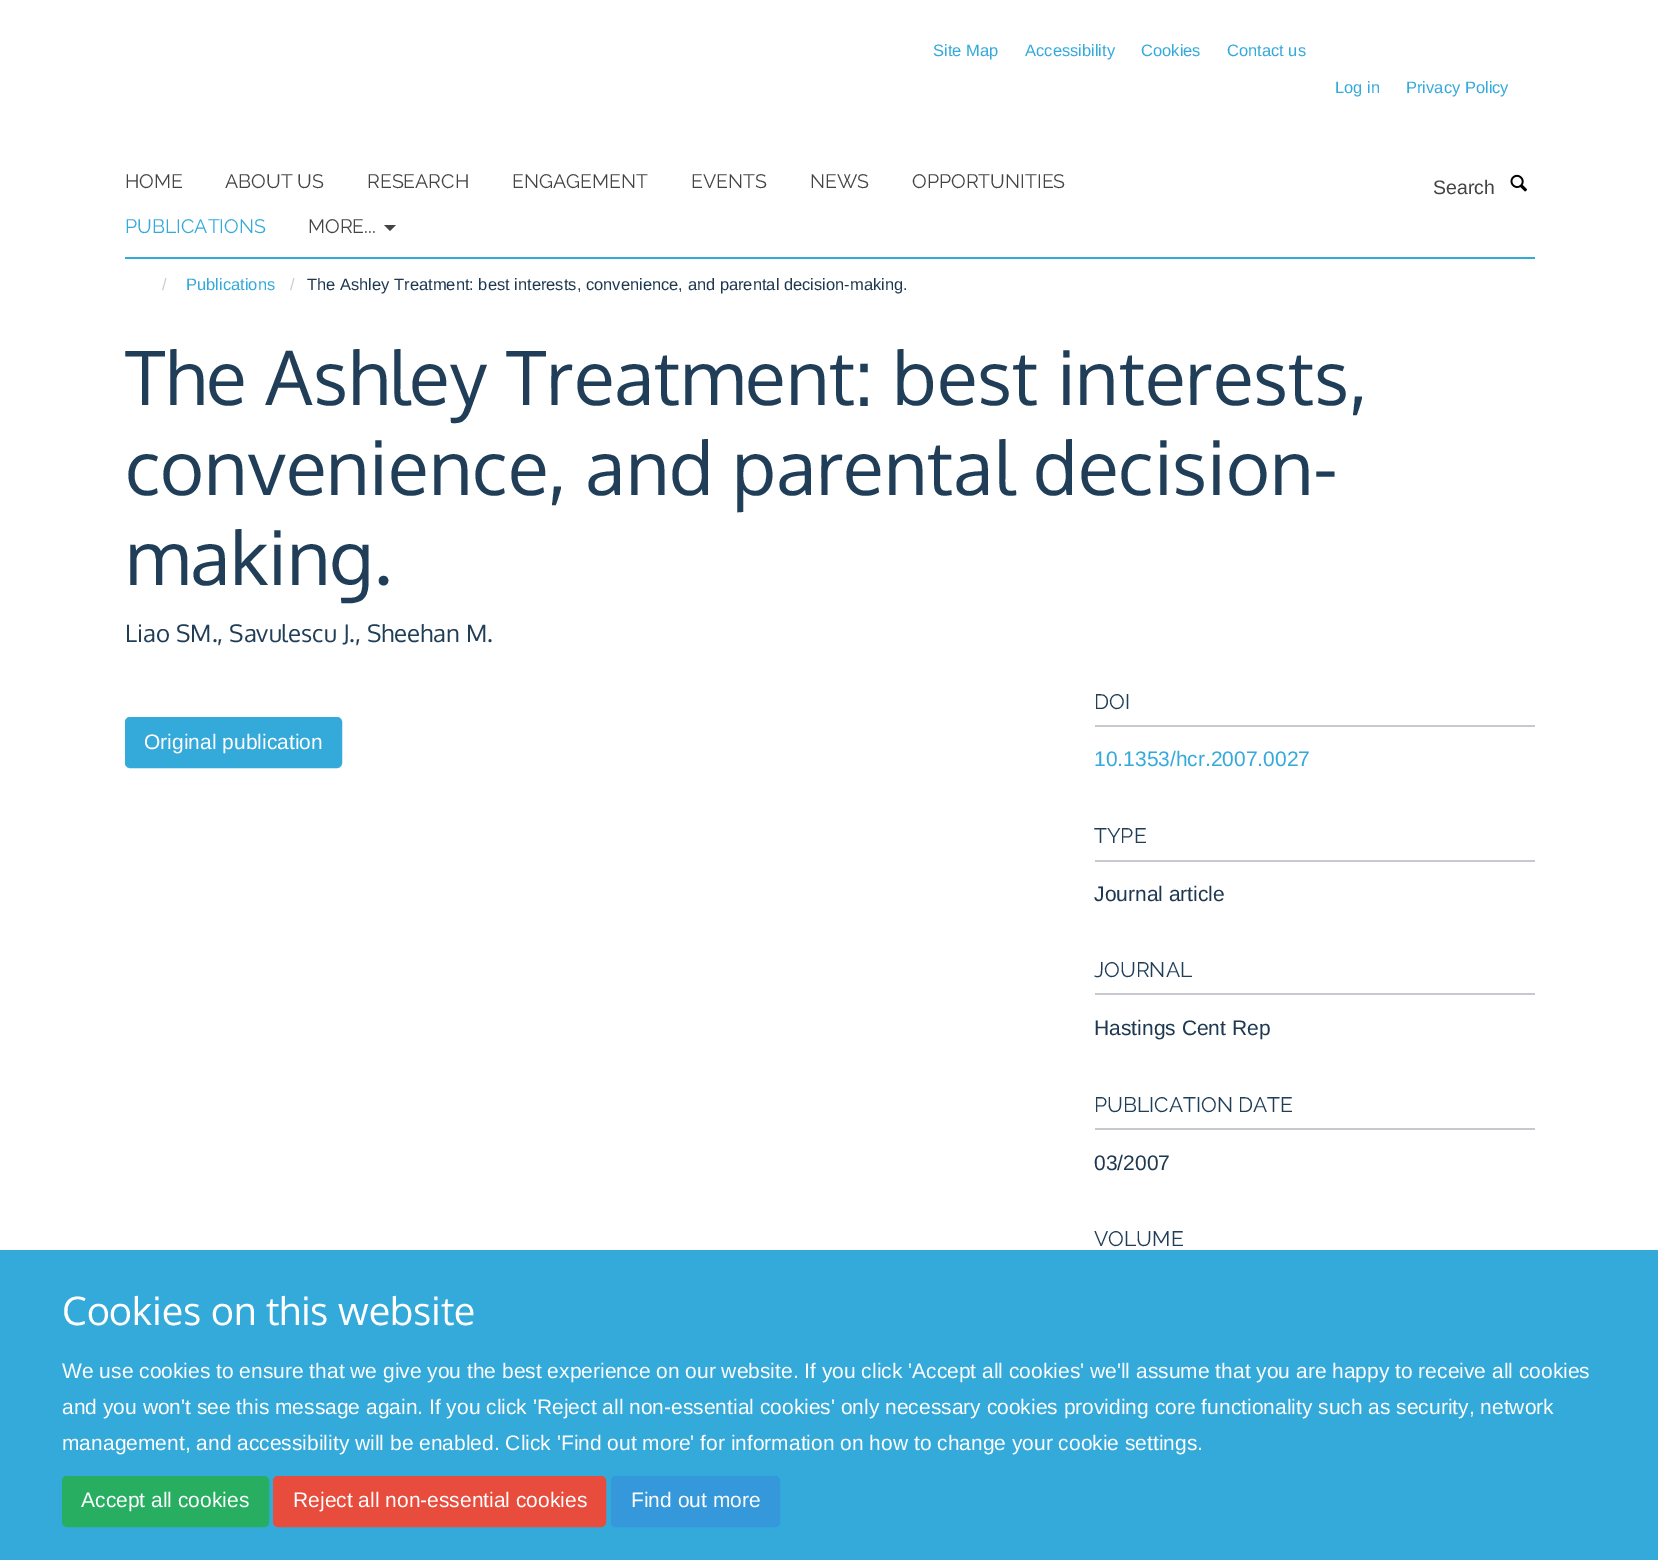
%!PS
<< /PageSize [1658 1560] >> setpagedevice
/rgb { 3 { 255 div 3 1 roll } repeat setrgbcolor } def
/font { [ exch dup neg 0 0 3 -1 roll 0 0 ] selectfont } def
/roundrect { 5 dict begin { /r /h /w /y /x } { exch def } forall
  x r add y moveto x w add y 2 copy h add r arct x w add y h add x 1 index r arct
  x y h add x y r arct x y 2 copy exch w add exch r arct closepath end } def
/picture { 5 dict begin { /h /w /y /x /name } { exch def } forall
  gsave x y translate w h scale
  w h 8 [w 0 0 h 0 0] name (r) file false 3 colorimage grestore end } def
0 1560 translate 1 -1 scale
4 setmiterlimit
255 255 255 rgb
0 0 1658 1560 rectfill
52 170 219 rgb
125 257 1410 2 rectfill
68 68 68 rgb
384 225 moveto 396 225 lineto 390 231 lineto closepath fill
(img/1.rgb) 1510 174 17 18 picture
52 170 219 rgb
126 718 215 49 4 roundrect gsave fill grestore
2 setlinewidth
stroke
[
  [1095 725 440 2 198 202 207]
  [1095 860 440 2 198 202 207]
  [1095 993 440 2 198 202 207]
  [1095 1128 440 2 198 202 207]
  [0 1250 1658 310 52 170 219]
] { aload pop rgb rectfill } forall
39 174 96 rgb
63 1477 205 49 4 roundrect gsave fill grestore
stroke
231 76 60 rgb
274 1477 331 49 4 roundrect gsave fill grestore
stroke
52 152 219 rgb
612 1477 167 49 4 roundrect gsave fill grestore
stroke
/LiberationSans-Regular 16.5 font
52 170 219 rgb
[
  [(Site Map) 933 56]
  [(Accessibility) 1025 56]
  [(Cookies) 1141 56]
  [(Contact us) 1227 56]
  [(Log in) 1335 93]
  [(Privacy Policy) 1406 93]
] { aload pop moveto show } forall
/Raleway-Thin 19.5 font
68 68 68 rgb
[
  [(HOME) 125 188]
  [(ABOUT US) 225 188]
  [(RESEARCH) 367 188]
  [(ENGAGEMENT) 512 188]
  [(EVENTS) 691 188]
  [(NEWS) 810 188]
  [(OPPORTUNITIES) 912 188]
] { aload pop moveto show } forall
52 170 219 rgb
125 233 moveto (PUBLICATIONS) show
68 68 68 rgb
308 233 moveto (MORE...) show
/LiberationSans-Regular 19.5 font
1433 194 moveto (Search) show
/LiberationSans-Regular 16.5 font
204 204 204 rgb
162 290 moveto (/) show
52 170 219 rgb
186 290 moveto (Publications) show
204 204 204 rgb
290 290 moveto (/) show
29 56 80 rgb
307 290 moveto (The Ashley Treatment: best interests, convenience, and parental decision-making.) show
/Oxygen-Regular 75 font
32 62 88 rgb
[
  [(The Ashley Treatment: best interests,) 125 405]
  [(convenience, and parental decision-) 125 495]
  [(making.) 125 585]
] { aload pop moveto show } forall
/Oxygen-Regular 24 font
125 642 moveto (Liao SM., Savulescu J., Sheehan M.) show
/LiberationSans-Regular 21 font
255 255 255 rgb
144 749 moveto (Original publication) show
/Raleway-Thin 21 font
32 62 88 rgb
1094 709 moveto (DOI) show
/LiberationSans-Regular 21 font
52 170 219 rgb
1094 766 moveto (10.1353/hcr.2007.0027) show
/Raleway-Thin 21 font
32 62 88 rgb
1094 843 moveto (TYPE) show
/LiberationSans-Regular 21 font
29 56 80 rgb
1094 901 moveto (Journal article) show
/Raleway-Thin 21 font
32 62 88 rgb
1094 977 moveto (JOURNAL) show
/LiberationSans-Regular 21 font
29 56 80 rgb
1094 1035 moveto (Hastings Cent Rep) show
/Raleway-Thin 21 font
32 62 88 rgb
1094 1112 moveto (PUBLICATION DATE) show
/LiberationSans-Regular 21 font
29 56 80 rgb
1094 1170 moveto (03/2007) show
/Raleway-Thin 21 font
32 62 88 rgb
1094 1246 moveto (VOLUME) show
/Oxygen-Regular 39 font
255 255 255 rgb
62 1325 moveto (Cookies on this website) show
/LiberationSans-Regular 21 font
[
  [(We use cookies to ensure that we give you the best experience on our website. If you click 'Accept all cookies' we'll assume that you are happy to receive all cookies) 62 1378]
  [(and you won't see this message again. If you click 'Reject all non-essential cookies' only necessary cookies providing core functionality such as security, network) 62 1414]
  [(management, and accessibility will be enabled. Click 'Find out more' for information on how to change your cookie settings.) 62 1450]
  [(Accept all cookies) 81 1507]
  [(Reject all non-essential cookies) 293 1507]
  [(Find out more) 631 1507]
] { aload pop moveto show } forall
showpage
